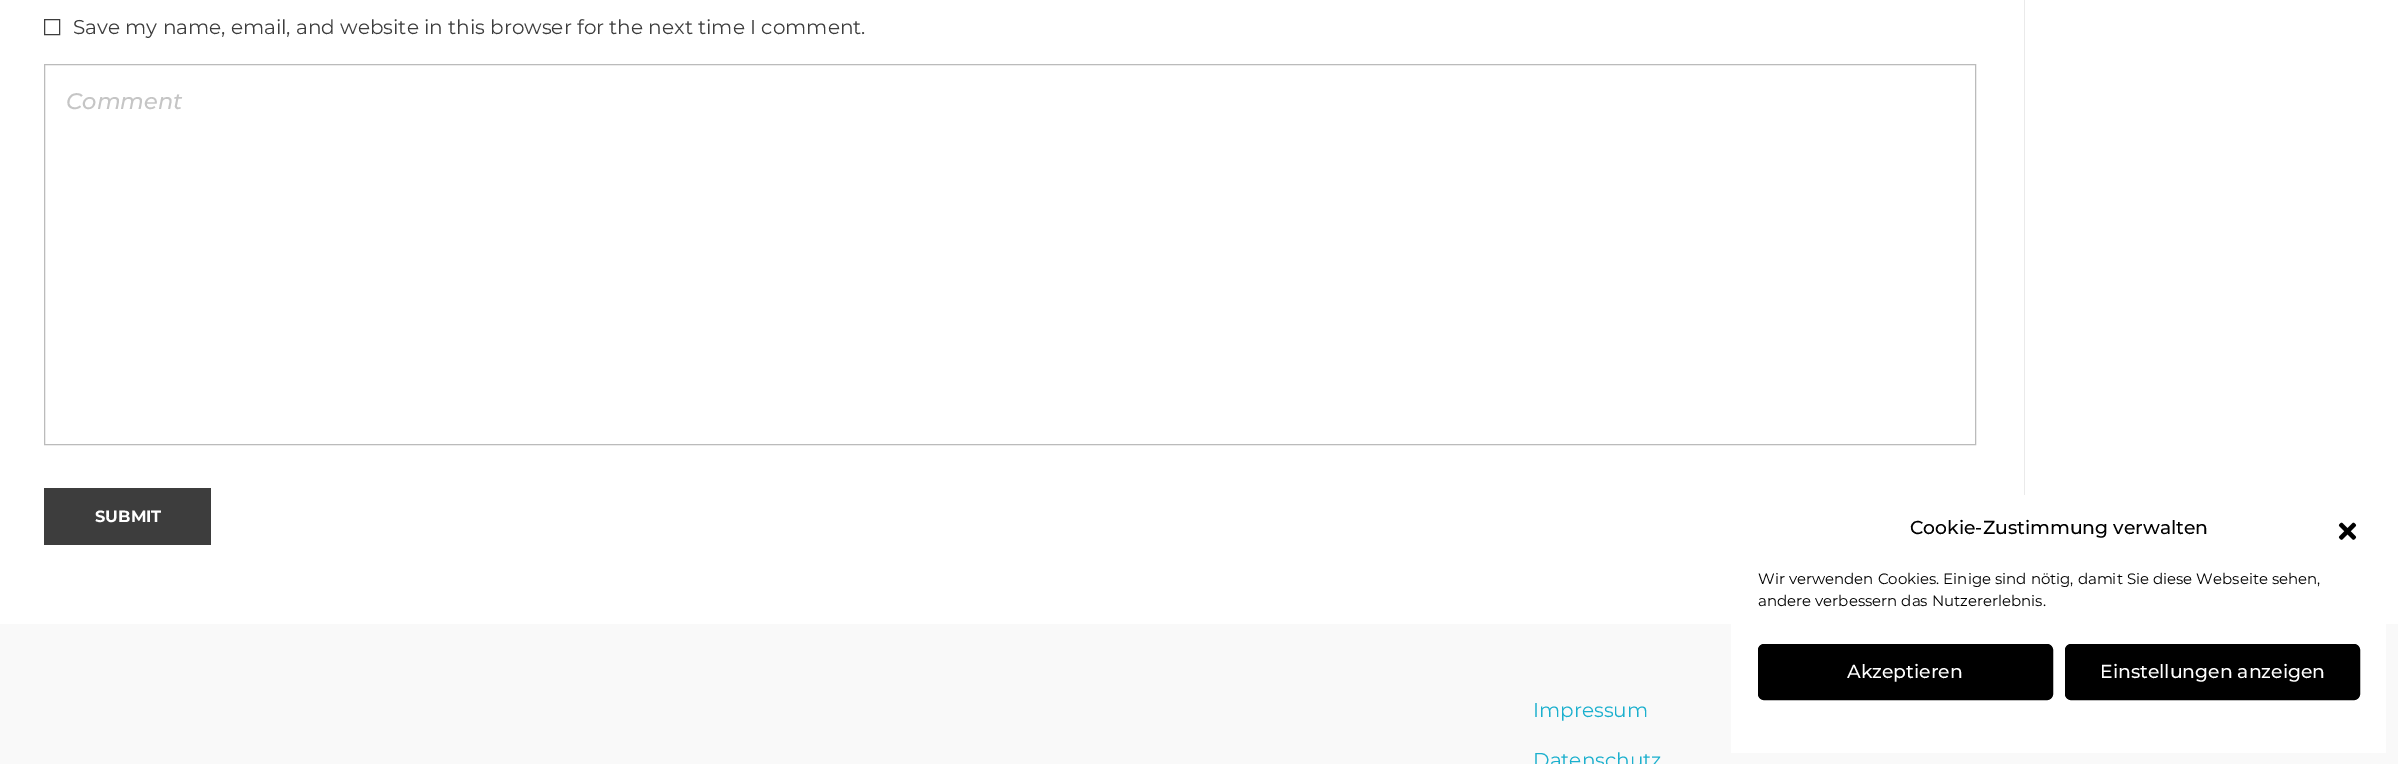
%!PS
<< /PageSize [2398 764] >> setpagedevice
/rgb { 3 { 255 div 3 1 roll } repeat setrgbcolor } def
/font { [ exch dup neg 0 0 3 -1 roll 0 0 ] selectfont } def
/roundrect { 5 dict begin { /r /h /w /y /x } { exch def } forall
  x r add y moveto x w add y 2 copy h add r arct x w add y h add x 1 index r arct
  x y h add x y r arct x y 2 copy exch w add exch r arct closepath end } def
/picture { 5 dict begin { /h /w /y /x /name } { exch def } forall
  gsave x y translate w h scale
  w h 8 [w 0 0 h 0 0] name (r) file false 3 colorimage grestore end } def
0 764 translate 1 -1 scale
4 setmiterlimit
255 255 255 rgb
0 0 2398 764 rectfill
61 61 61 rgb
44.5 19.5 15 15 rectstroke
187 187 187 rgb
44.5 64.5 1931 380 rectstroke
[
  [44 488 167 57 61 61 61]
  [2024 0 1 495 234 234 234]
  [0 624 2398 140 249 249 249]
  [1731 624 655 129 255 255 255]
] { aload pop rgb rectfill } forall
(img/1.rgb) 2338 522 19 18 picture
0 0 0 rgb
1758.5 644.5 294 55 5.5 roundrect gsave fill grestore
stroke
2065.5 644.5 294 55 5.5 roundrect gsave fill grestore
stroke
/Montserrat-Regular 20 font
61 61 61 rgb
73 34 moveto (Save my name, email, and website in this browser for the next time I comment.) show
/Montserrat-MediumItalic 22.5 font
197 197 197 rgb
66 109 moveto (Comment) show
/Montserrat-Bold 16.25 font
255 255 255 rgb
95 522 moveto (SUBMIT) show
/Montserrat-Regular 20 font
27 176 206 rgb
1533 717 moveto (Impressum) show
1533 767 moveto (Datenschutz) show
/Montserrat-Medium 18.75 font
0 0 0 rgb
1910 534 moveto (Cookie-Zustimmung verwalten) show
/Montserrat-Regular 15 font
1758 584 moveto (Wir verwenden Cookies. Einige sind nötig, damit Sie diese Webseite sehen,) show
1758 606 moveto (andere verbessern das Nutzererlebnis.) show
/Montserrat-Medium 18.75 font
255 255 255 rgb
1847 678 moveto (Akzeptieren) show
2100 678 moveto (Einstellungen anzeigen) show
showpage
